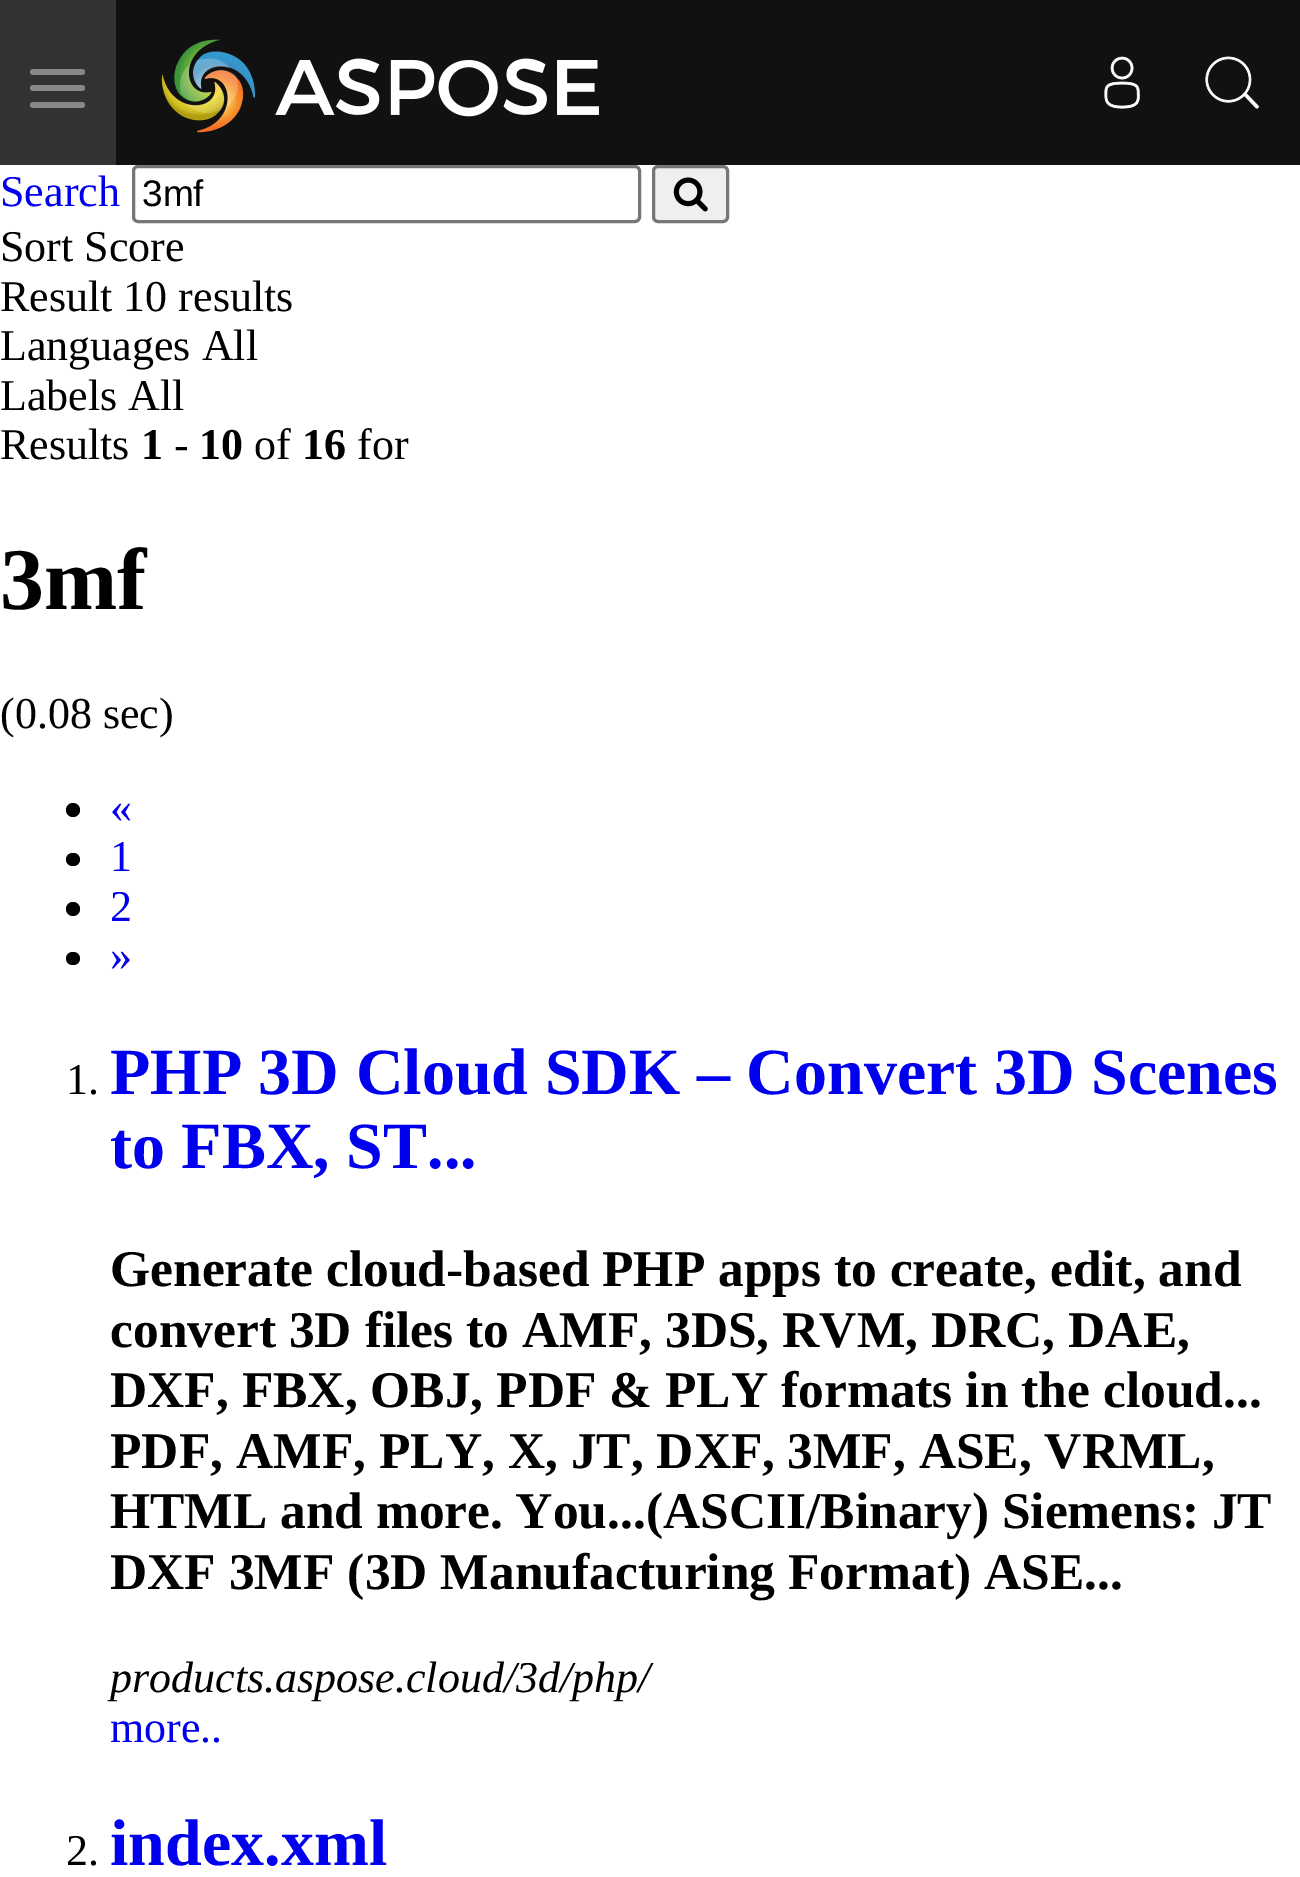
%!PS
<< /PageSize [1300 1877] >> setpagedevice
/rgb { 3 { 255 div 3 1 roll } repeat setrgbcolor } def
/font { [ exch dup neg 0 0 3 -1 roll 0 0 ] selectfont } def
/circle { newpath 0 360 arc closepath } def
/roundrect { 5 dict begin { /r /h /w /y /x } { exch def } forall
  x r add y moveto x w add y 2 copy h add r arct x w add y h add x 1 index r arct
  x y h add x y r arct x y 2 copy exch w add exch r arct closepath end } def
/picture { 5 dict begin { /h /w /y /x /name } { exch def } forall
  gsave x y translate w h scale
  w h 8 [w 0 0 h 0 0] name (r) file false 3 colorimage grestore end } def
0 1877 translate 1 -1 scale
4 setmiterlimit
255 255 255 rgb
0 0 1300 1877 rectfill
17 17 17 rgb
116 0 1184 165 rectfill
51 51 51 rgb
0 0 116 165 rectfill
136 136 136 rgb
30 69 55 6 3 roundrect fill
30 85 55 6 3 roundrect fill
30 102 55 6 3 roundrect fill
(img/1.rgb) 161 39 438 94 picture
(img/2.rgb) 1104 56 36 53 picture
(img/3.rgb) 1205 56 54 53 picture
118 118 118 rgb
3 setlinewidth
133.5 166.5 506 55 4.5 roundrect stroke
239 239 239 rgb
653.5 166.5 74 55 4.5 roundrect gsave fill grestore
118 118 118 rgb
stroke
(img/4.rgb) 673 177 35 35 picture
0 0 0 rgb
73 810 7 circle fill
66 853 14 13 6.5 roundrect fill
73 909 7 circle fill
66 952 14 13 6.5 roundrect fill
/LiberationSerif-Regular 44 font
0 0 238 rgb
0 206 moveto (Search) show
/LiberationSans-Regular 37 font
0 0 0 rgb
142 206 moveto (3mf) show
/LiberationSerif-Regular 44 font
[
  [(Sort Score) 0 261]
  [(Result 10 results) 0 311]
  [(Languages All) 0 360]
  [(Labels All) 0 410]
  [(Results) 0 459]
] { aload pop moveto show } forall
/LiberationSerif-Bold 44 font
141 459 moveto (1) show
/LiberationSerif-Regular 44 font
174 459 moveto (-) show
/LiberationSerif-Bold 44 font
199 459 moveto (10) show
/LiberationSerif-Regular 44 font
254 459 moveto (of) show
/LiberationSerif-Bold 44 font
302 459 moveto (16) show
/LiberationSerif-Regular 44 font
357 459 moveto (for) show
/LiberationSerif-Bold 88 font
0 609 moveto (3mf) show
/LiberationSerif-Regular 44 font
0 728 moveto (\(0.08 sec\)) show
0 0 238 rgb
[
  [(«) 110 822]
  [(1) 110 871]
  [(2) 110 921]
  [(») 110 970]
] { aload pop moveto show } forall
0 0 0 rgb
66 1094 moveto (1.) show
/LiberationSerif-Bold 66 font
0 0 238 rgb
110 1094 moveto (PHP 3D Cloud SDK – Convert 3D Scenes) show
110 1168 moveto (to FBX, ST...) show
/LiberationSerif-Bold 51.5 font
0 0 0 rgb
[
  [(Generate cloud-based PHP apps to create, edit, and) 110 1286]
  [(convert 3D files to AMF, 3DS, RVM, DRC, DAE,) 110 1347]
  [(DXF, FBX, OBJ, PDF & PLY formats in the cloud...) 110 1407]
  [(PDF, AMF, PLY, X, JT, DXF,) 110 1468]
  [(3MF, ASE, VRML,) 787 1468]
] { aload pop moveto show } forall
110 1528 moveto -0.25 0 32 (HTML and more. You...\(ASCII/Binary\) Siemens: JT) widthshow
110 1589 moveto (DXF 3MF \(3D Manufacturing Format\) ASE...) show
/LiberationSerif-Italic 44 font
110 1692 moveto (products.aspose.cloud/3d/php/) show
/LiberationSerif-Regular 44 font
0 0 238 rgb
110 1742 moveto (more..) show
0 0 0 rgb
66 1865 moveto (2.) show
/LiberationSerif-Bold 66 font
0 0 238 rgb
110 1865 moveto (index.xml) show
showpage
